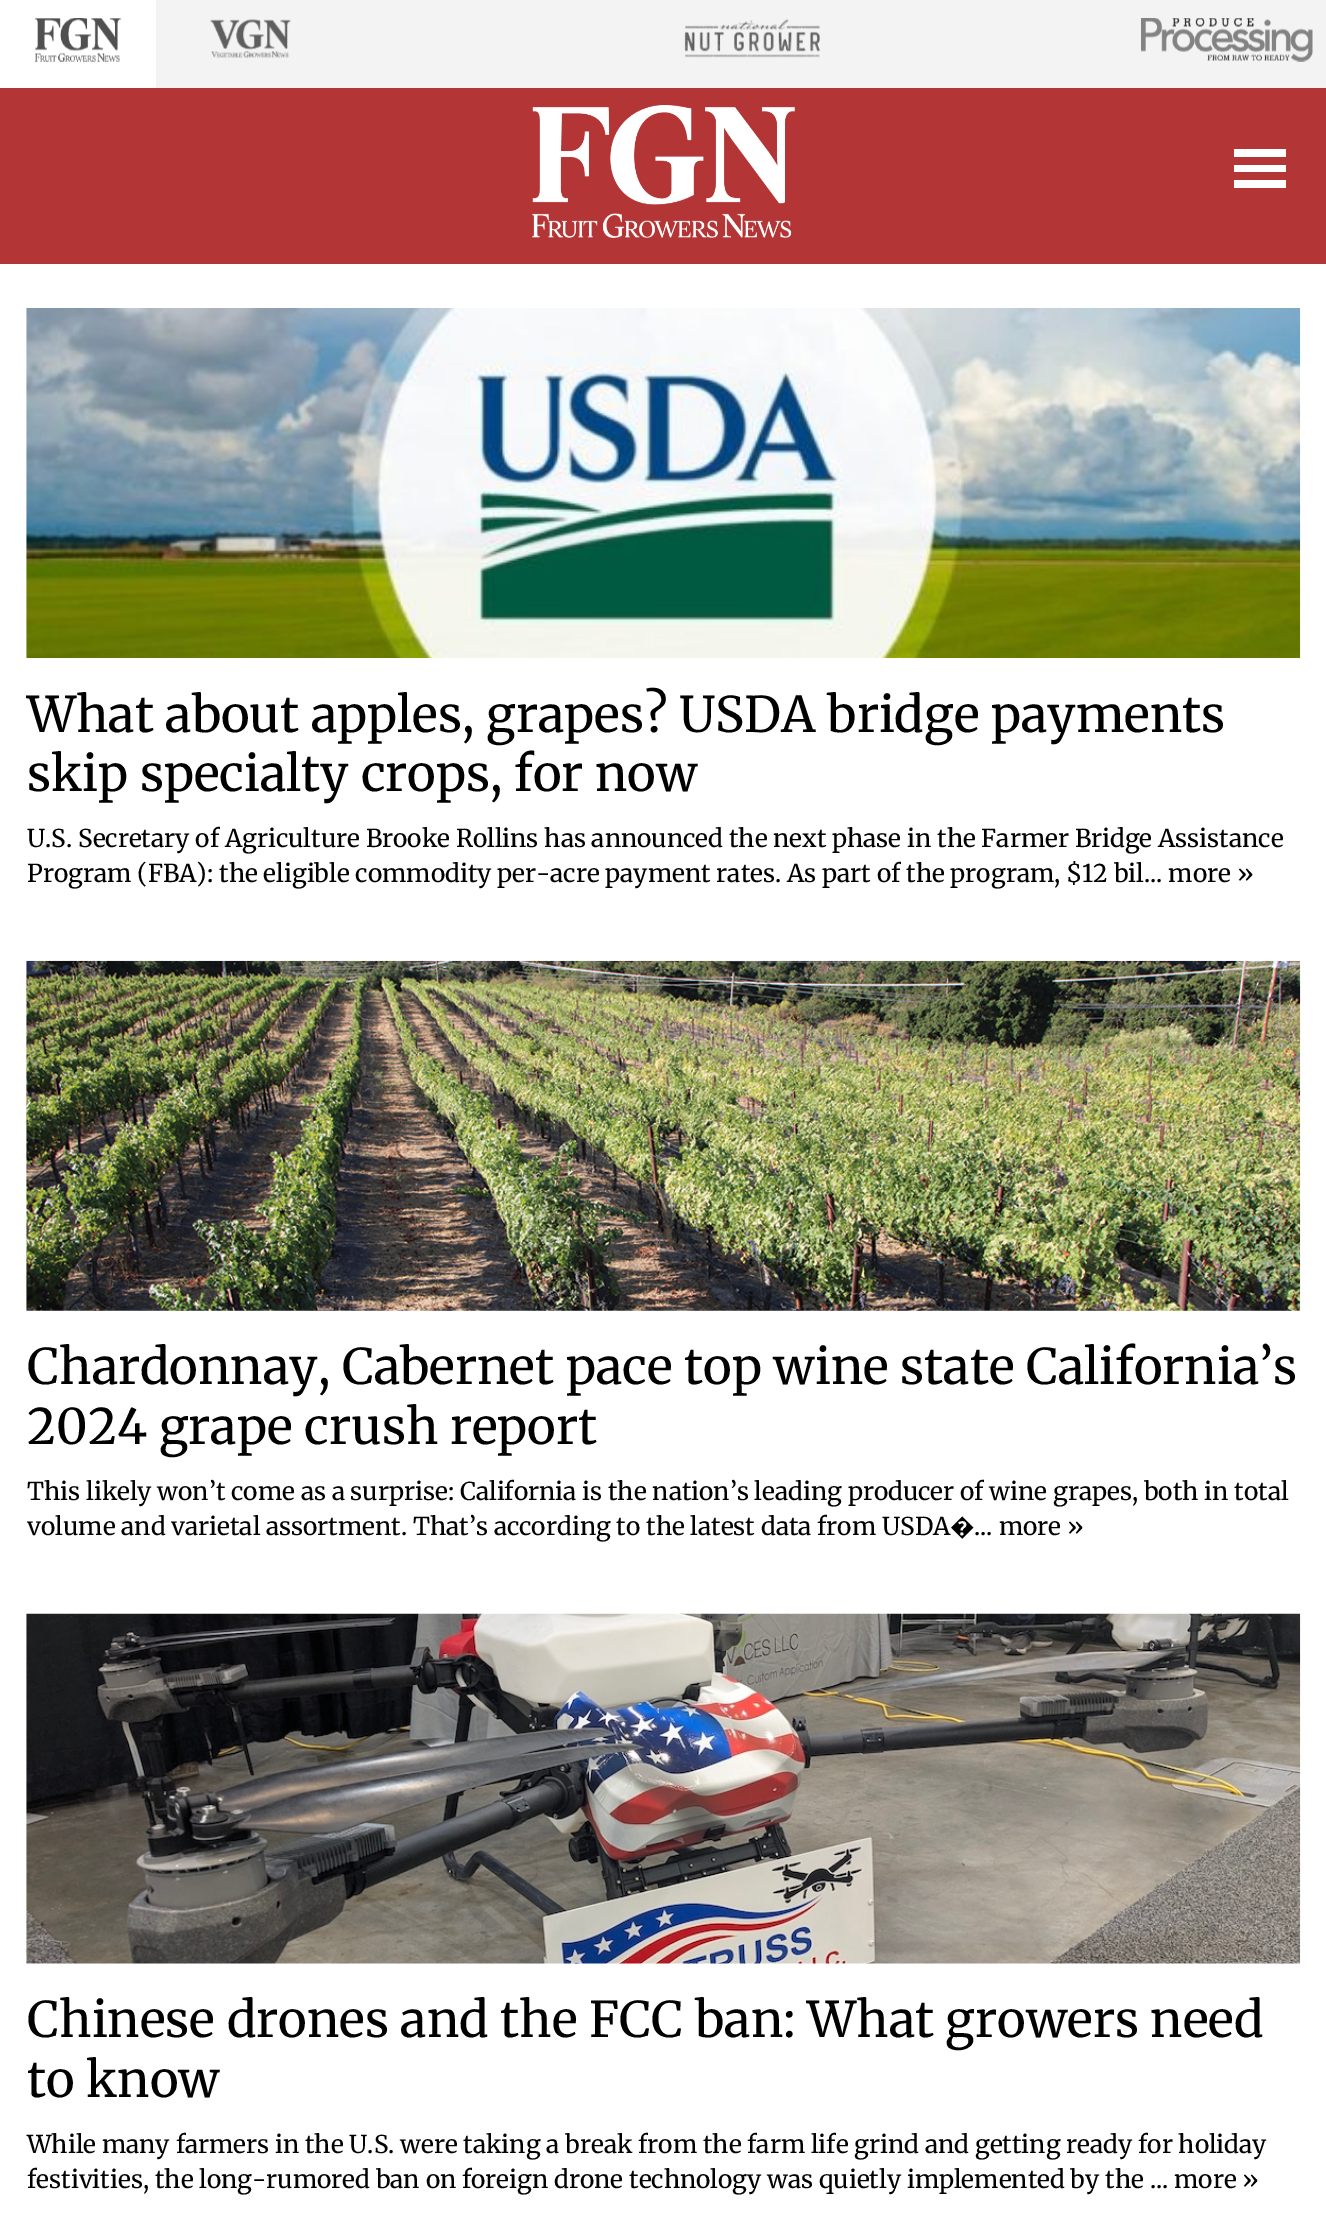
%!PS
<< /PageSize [1326 2218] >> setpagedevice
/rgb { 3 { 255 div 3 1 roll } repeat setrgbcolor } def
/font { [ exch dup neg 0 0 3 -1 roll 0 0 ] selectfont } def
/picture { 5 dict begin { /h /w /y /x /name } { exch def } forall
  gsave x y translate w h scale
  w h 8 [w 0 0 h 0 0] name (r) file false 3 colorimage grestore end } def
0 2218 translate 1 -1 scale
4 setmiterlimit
255 255 255 rgb
0 0 1326 2218 rectfill
243 243 243 rgb
156 0 1170 88 rectfill
(img/1.rgb) 35 18 86 44 picture
(img/2.rgb) 210 19 81 39 picture
(img/3.rgb) 684 19 136 39 picture
(img/4.rgb) 1141 18 172 44 picture
180 53 53 rgb
0 88 1326 176 rectfill
(img/5.rgb) 532 105 263 133 picture
255 255 255 rgb
1286 157 moveto 1286 149 lineto 1234 149 lineto 1234 157 lineto closepath 1286 172 moveto 1286 165 lineto 1234 165 lineto 1234 172 lineto closepath 1286 188 moveto 1286 180 lineto 1234 180 lineto 1234 188 lineto closepath fill
(img/6.rgb) 26 308 1275 350 picture
(img/7.rgb) 26 960 1275 351 picture
(img/8.rgb) 26 1613 1275 351 picture
gsave
26 308 1274 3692 rectclip
/Merriweather-Regular 49 font
0 0 0 rgb
27 732 moveto (What about apples, grapes? USDA bridge payments) show
grestore
/Merriweather-Regular 49 font
0 0 0 rgb
27 791 moveto (skip specialty crops, for now) show
/Merriweather-Regular 24.5 font
27 847 moveto (U.S. Secretary of Agriculture Brooke Rollins has announced the next phase in the Farmer Bridge Assistance) show
27 882 moveto (Program \(FBA\): the eligible commodity per-acre payment rates. As part of the program, $12 bil... more ») show
/Merriweather-Regular 49 font
27 1384 moveto (Chardonnay, Cabernet pace top wine state California’s) show
27 1444 moveto (2024 grape crush report) show
/Merriweather-Regular 24.5 font
27 1500 moveto (This likely won’t come as a surprise: California is the nation’s leading producer of wine grapes, both in total) show
27 1535 moveto (volume and varietal assortment. That’s according to the latest data from USDA) show
/NotoSans-Regular 24.5 font
950 1535 moveto (�) show
/Merriweather-Regular 24.5 font
974 1535 moveto (... more ») show
/Merriweather-Regular 49 font
27 2037 moveto (Chinese drones and the FCC ban: What growers need) show
27 2097 moveto (to know) show
/Merriweather-Regular 24.5 font
27 2153 moveto (While many farmers in the U.S. were taking a break from the farm life grind and getting ready for holiday) show
27 2188 moveto (festivities, the long-rumored ban on foreign drone technology was quietly implemented by the ... more ») show
showpage
